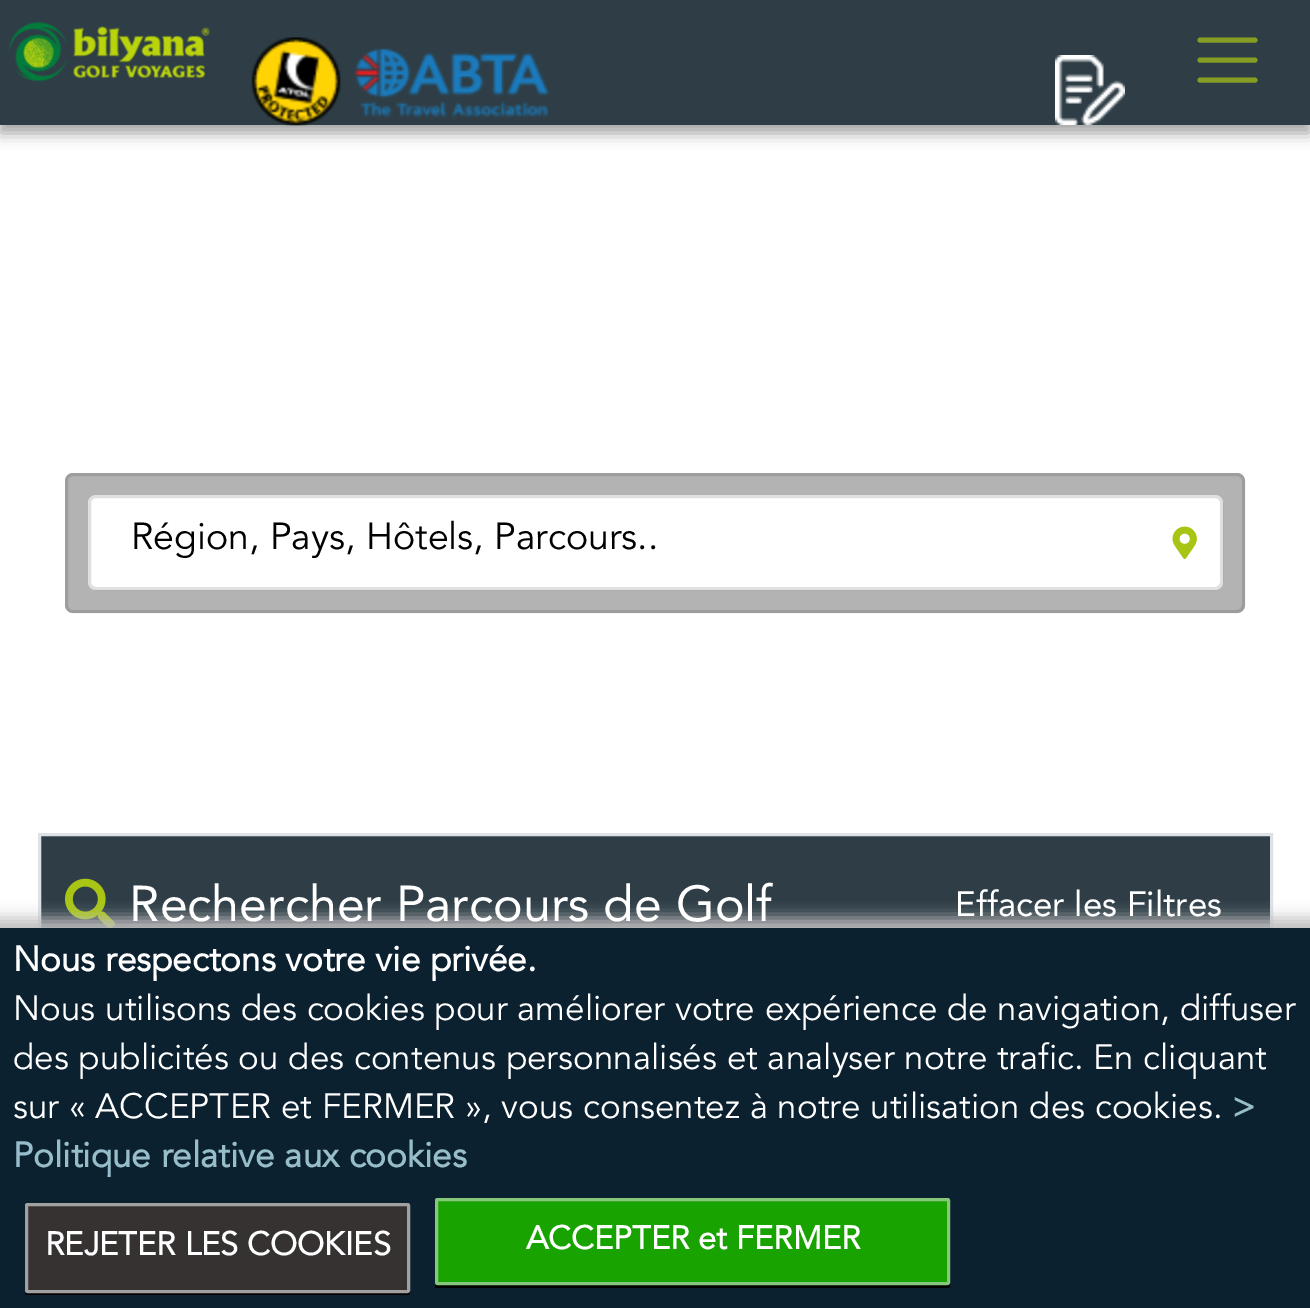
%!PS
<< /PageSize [1310 1308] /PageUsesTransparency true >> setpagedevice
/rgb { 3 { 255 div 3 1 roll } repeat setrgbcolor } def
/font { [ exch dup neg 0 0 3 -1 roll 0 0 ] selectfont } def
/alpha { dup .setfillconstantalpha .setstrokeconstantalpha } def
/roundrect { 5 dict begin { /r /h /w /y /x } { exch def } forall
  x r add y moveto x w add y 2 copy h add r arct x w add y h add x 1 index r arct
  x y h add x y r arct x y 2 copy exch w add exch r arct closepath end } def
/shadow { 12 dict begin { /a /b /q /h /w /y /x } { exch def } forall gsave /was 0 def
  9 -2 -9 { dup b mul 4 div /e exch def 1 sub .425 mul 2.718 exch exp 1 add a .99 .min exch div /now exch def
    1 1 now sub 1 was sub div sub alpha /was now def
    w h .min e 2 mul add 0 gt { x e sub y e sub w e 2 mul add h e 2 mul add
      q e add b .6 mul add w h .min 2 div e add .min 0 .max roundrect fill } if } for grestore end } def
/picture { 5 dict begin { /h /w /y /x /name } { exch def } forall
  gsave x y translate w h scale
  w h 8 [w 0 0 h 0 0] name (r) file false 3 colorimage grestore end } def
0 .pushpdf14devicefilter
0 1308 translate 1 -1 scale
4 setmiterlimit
255 255 255 rgb
0 0 1310 1308 rectfill
0 0 0 rgb
0 8 1310 125 0 7.5 0.23 shadow
0 8 1310 125 0 7.5 0.16 shadow
47 62 70 rgb
0 0 1310 125 rectfill
(img/1.rgb) 8 21 202 61 picture
(img/2.rgb) 251 37 90 89 picture
(img/3.rgb) 354 48 195 70 picture
(img/4.rgb) 1055 55 70 70 picture
132 157 34 rgb
5 setlinewidth
1 setlinecap
1200 40 moveto 1255 40 lineto 1200 60 moveto 1255 60 lineto 1200 80 moveto 1255 80 lineto stroke
179 179 179 rgb
65 473 1180 140 8 roundrect fill
0.12 alpha
0 0 0 rgb
3 setlinewidth
0 setlinecap
66.5 474.5 1177 137 6.5 roundrect stroke
1 alpha
255 255 255 rgb
88 495 1135 95 8 roundrect fill
0.12 alpha
0 0 0 rgb
89.5 496.5 1132 92 6.5 roundrect stroke
1 alpha
(img/5.rgb) 1172 526 25 33 picture
47 62 70 rgb
41 836 1229 92 rectfill
222 226 230 rgb
39.5 834.5 1232 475 rectstroke
(img/6.rgb) 65 878 50 50 picture
189 189 189 rgb
-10 918 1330 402 0 7.5 1 shadow
12 33 48 rgb
0 928 1310 380 rectfill
0 0 0 rgb
25 1290 moveto 25 1292 lineto 25 1294 26 1295 28 1295 curveto 408 1295 lineto 409 1295 410 1294 410 1292 curveto 410 1290 lineto 410 1291 409 1292 408 1292 curveto 28 1292 lineto 26 1292 25 1291 25 1290 curveto closepath fill
54 50 49 rgb
26.5 1204.5 382 87 1 roundrect gsave fill grestore
161 161 161 rgb
stroke
0 0 0 rgb
435 1282 moveto 435 1286 lineto 435 1287 436 1288 438 1288 curveto 948 1288 lineto 949 1288 950 1287 950 1286 curveto 950 1282 lineto 950 1284 949 1285 948 1285 curveto 438 1285 lineto 436 1285 435 1284 435 1282 curveto closepath fill
24 163 0 rgb
436.5 1199.5 512 84 1 roundrect gsave fill grestore
135 199 124 rgb
stroke
/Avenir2-Regular 37.5 font
0 0 0 rgb
131 549 moveto (Région, Pays, Hôtels, Parcours..) show
/Avenir-Regular 50 font
255 255 255 rgb
129 921 moveto (Rechercher Parcours de Golf) show
/Avenir-Regular 35 font
955 916 moveto (Effacer les Filtres) show
/Avenir-Bold 35 font
13 971 moveto (Nous respectons votre vie privée.) show
/Avenir2-Regular 35 font
[
  [(Nous utilisons des cookies pour améliorer votre expérience de navigation, diffuser) 13 1020]
  [(des publicités ou des contenus personnalisés et analyser notre trafic. En cliquant) 13 1069]
  [(sur « ACCEPTER et FERMER », vous consentez à notre utilisation des cookies.) 13 1118]
] { aload pop moveto show } forall
/Avenir-Bold 35 font
151 189 202 rgb
1232 1118 moveto (>) show
13 1167 moveto (Politique relative aux cookies) show
/Avenir-Bold 32.5 font
255 255 255 rgb
45 1255 moveto (REJETER LES COOKIES) show
526 1249 moveto (ACCEPTER et FERMER) show
.poppdf14devicefilter showpage
